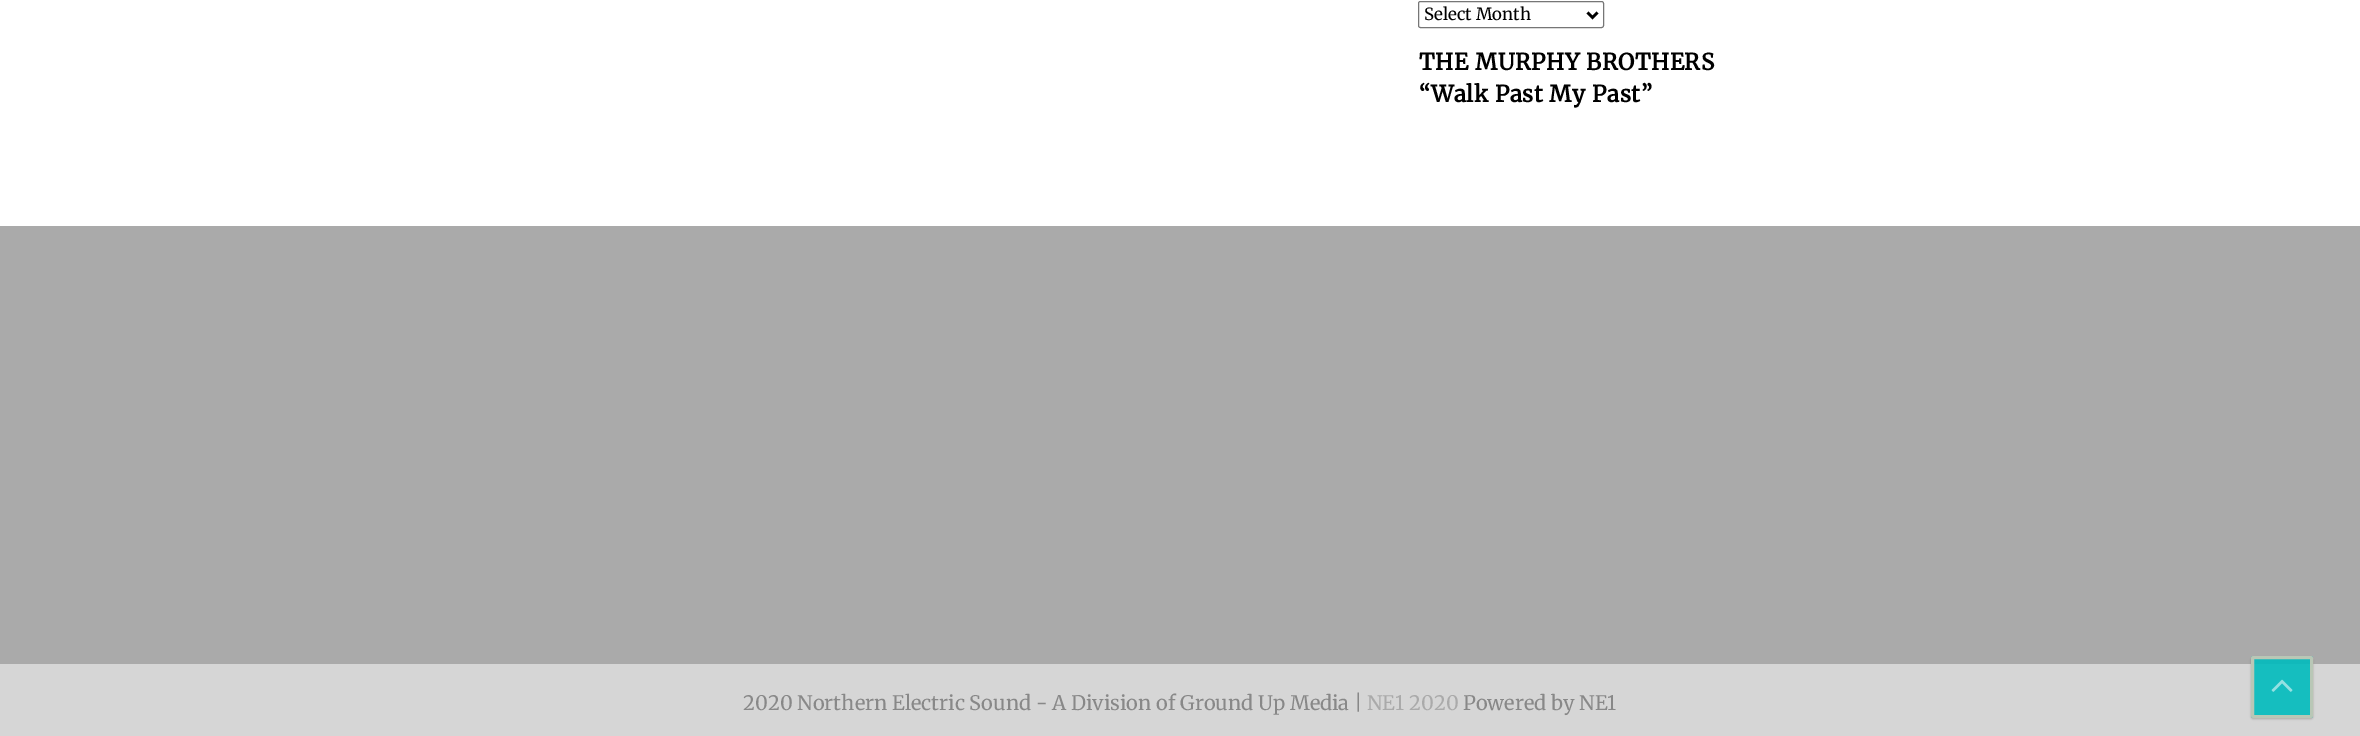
%!PS
<< /PageSize [2360 736] /PageUsesTransparency true >> setpagedevice
/rgb { 3 { 255 div 3 1 roll } repeat setrgbcolor } def
/font { [ exch dup neg 0 0 3 -1 roll 0 0 ] selectfont } def
/alpha { dup .setfillconstantalpha .setstrokeconstantalpha } def
/roundrect { 5 dict begin { /r /h /w /y /x } { exch def } forall
  x r add y moveto x w add y 2 copy h add r arct x w add y h add x 1 index r arct
  x y h add x y r arct x y 2 copy exch w add exch r arct closepath end } def
/shadow { 12 dict begin { /a /b /q /h /w /y /x } { exch def } forall gsave /was 0 def
  9 -2 -9 { dup b mul 4 div /e exch def 1 sub .425 mul 2.718 exch exp 1 add a .99 .min exch div /now exch def
    1 1 now sub 1 was sub div sub alpha /was now def
    w h .min e 2 mul add 0 gt { x e sub y e sub w e 2 mul add h e 2 mul add
      q e add b .6 mul add w h .min 2 div e add .min 0 .max roundrect fill } if } for grestore end } def
/picture { 5 dict begin { /h /w /y /x /name } { exch def } forall
  gsave x y translate w h scale
  w h 8 [w 0 0 h 0 0] name (r) file false 3 colorimage grestore end } def
0 .pushpdf14devicefilter
0 736 translate 1 -1 scale
4 setmiterlimit
255 255 255 rgb
0 0 2360 736 rectfill
118 118 118 rgb
1418.5 1.5 185 26 2 roundrect stroke
0 0 0 rgb
2.5 setlinewidth
1587.5 12.5 moveto 1592.5 17.5 lineto 1597.5 12.5 lineto stroke
170 170 170 rgb
0 226 2360 438 rectfill
214 214 214 rgb
0 664 2360 72 rectfill
gsave
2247 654 moveto 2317 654 lineto 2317 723 lineto 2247 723 lineto closepath 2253.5 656 moveto 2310.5 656 lineto 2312 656 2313 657 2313 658.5 curveto 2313 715.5 lineto 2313 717 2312 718 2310.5 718 curveto 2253.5 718 lineto 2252 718 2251 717 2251 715.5 curveto 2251 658.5 lineto 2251 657 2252 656 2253.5 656 curveto closepath eoclip newpath
0 0 0 rgb
2251 658 62 61 2.5 1 0.23 shadow
grestore
0.9 alpha
0 187 189 rgb
2251 656 62 62 2.5 roundrect fill
203 200 181 rgb
3 setlinewidth
2252.5 657.5 59 59 1 roundrect stroke
1 alpha
(img/1.rgb) 2271 679 22 13 picture
/Merriweather-Light 16.75 font
0 0 0 rgb
1424 20 moveto (Select Month) show
/Merriweather-Bold 22.5 font
1419 70 moveto 0.6 0 (THE MURPHY BROTHERS) ashow
1419 102 moveto 0.6 0 (“Walk Past My Past”) ashow
/Merriweather-Light 20 font
136 136 136 rgb
743 710 moveto (2020 Northern Electric Sound - A Division of Ground Up Media |) show
170 170 170 rgb
1367 710 moveto (NE1 2020) show
136 136 136 rgb
1463 710 moveto (Powered by NE1) show
.poppdf14devicefilter showpage
